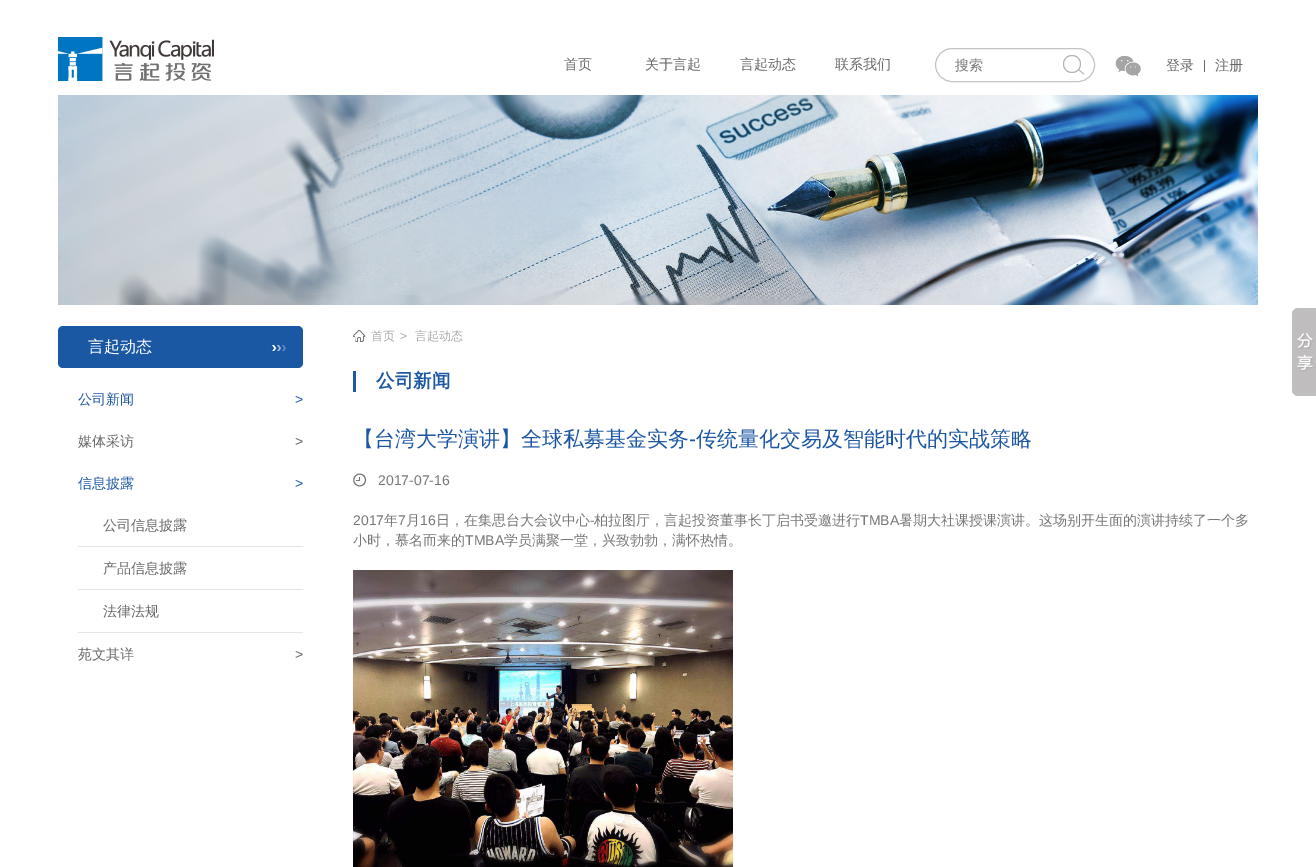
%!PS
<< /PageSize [1316 867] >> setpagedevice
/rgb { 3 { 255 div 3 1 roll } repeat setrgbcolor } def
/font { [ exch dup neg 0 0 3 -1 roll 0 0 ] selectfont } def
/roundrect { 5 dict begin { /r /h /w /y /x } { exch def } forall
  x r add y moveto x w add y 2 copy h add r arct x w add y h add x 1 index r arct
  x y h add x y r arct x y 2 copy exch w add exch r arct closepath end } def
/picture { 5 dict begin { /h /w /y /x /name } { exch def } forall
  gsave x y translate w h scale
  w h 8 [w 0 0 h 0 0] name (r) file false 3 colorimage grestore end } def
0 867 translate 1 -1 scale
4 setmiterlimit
255 255 255 rgb
0 0 1316 867 rectfill
(img/1.rgb) 58 37 156 44 picture
196 196 196 rgb
935.5 48.5 159 33 16.5 roundrect stroke
(img/2.rgb) 1063 55 22 20 picture
(img/3.rgb) 1115 56 26 20 picture
103 103 103 rgb
1204 60 1 12 rectfill
(img/4.rgb) 58 95 1200 210 picture
26 88 163 rgb
58 326 245 42 5 roundrect fill
(img/5.rgb) 271 344 15 7 picture
[
  [78 546 225 1 229 229 229]
  [78 589 225 1 229 229 229]
  [78 632 225 1 229 229 229]
] { aload pop rgb rectfill } forall
(img/6.rgb) 353 330 13 12 picture
26 88 163 rgb
353 371 3 21 rectfill
(img/7.rgb) 353 473 13 14 picture
(img/8.rgb) 353 570 380 297 picture
(img/9.rgb) 1292 308 24 88 picture
/WenQuanYiZenHei-Medium 14 font
103 103 103 rgb
[
  [(首页) 564 69]
  [(关于言起) 645 69]
  [(言起动态) 740 69]
  [(联系我们) 835 69]
] { aload pop moveto show } forall
119 119 119 rgb
955 70 moveto (搜索) show
103 103 103 rgb
1166 70 moveto (登录) show
1215 70 moveto (注册) show
/WenQuanYiZenHei-Medium 16 font
255 255 255 rgb
88 352 moveto (言起动态) show
/WenQuanYiZenHei-Medium 14 font
28 87 163 rgb
78 404 moveto (公司新闻) show
/LiberationSans-Regular 14 font
295 404 moveto (>) show
/WenQuanYiZenHei-Medium 14 font
103 103 103 rgb
78 446 moveto (媒体采访) show
/LiberationSans-Regular 14 font
295 446 moveto (>) show
/WenQuanYiZenHei-Medium 14 font
28 87 163 rgb
78 488 moveto (信息披露) show
/LiberationSans-Regular 14 font
295 488 moveto (>) show
/WenQuanYiZenHei-Medium 14 font
103 103 103 rgb
[
  [(公司信息披露) 103 530]
  [(产品信息披露) 103 573]
  [(法律法规) 103 616]
  [(苑文其详) 78 659]
] { aload pop moveto show } forall
/LiberationSans-Regular 14 font
295 659 moveto (>) show
/WenQuanYiZenHei-Medium 12 font
170 170 170 rgb
371 340 moveto (首页) show
/LiberationSans-Regular 12 font
400 340 moveto (>) show
/WenQuanYiZenHei-Medium 12 font
415 340 moveto (言起动态) show
/WenQuanYiZenHei-Bold 18.5 font
28 87 163 rgb
376 387 moveto (公司新闻) show
/WenQuanYiZenHei-Medium 21 font
353 446 moveto (【台湾大学演讲】全球私募基金实务) show
/LiberationSans-Regular 21 font
689 446 moveto (-) show
/WenQuanYiZenHei-Medium 21 font
696 446 moveto (传统量化交易及智能时代的实战策略) show
/LiberationSans-Regular 14 font
119 119 119 rgb
378 485 moveto (2017-07-16) show
353 525 moveto (2017) show
/WenQuanYiZenHei-Medium 14 font
384 525 moveto (年) show
/LiberationSans-Regular 14 font
398 525 moveto (7) show
/WenQuanYiZenHei-Medium 14 font
406 525 moveto (月) show
/LiberationSans-Regular 14 font
420 525 moveto (16) show
/WenQuanYiZenHei-Medium 14 font
436 525 moveto (日，在集思台大会议中心) show
/LiberationSans-Regular 14 font
590 525 moveto (-) show
/WenQuanYiZenHei-Medium 14 font
594 525 moveto (柏拉图厅，言起投资董事长丁启书受邀进行) show
/LiberationSans-Regular 14 font
860 525 moveto (TMBA) show
/WenQuanYiZenHei-Medium 14 font
899 525 moveto (暑期大社课授课演讲。这场别开生面的演讲持续了一个多) show
353 545 moveto (小时，慕名而来的) show
/LiberationSans-Regular 14 font
465 545 moveto (TMBA) show
/WenQuanYiZenHei-Medium 14 font
504 545 moveto (学员满聚一堂，兴致勃勃，满怀热情。) show
showpage
